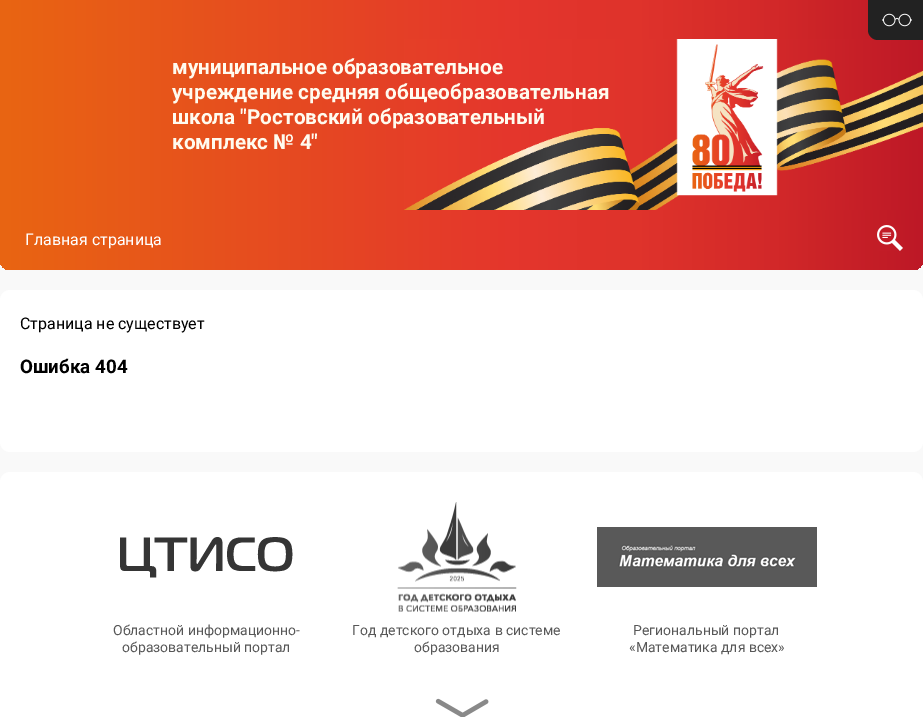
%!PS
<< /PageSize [923 717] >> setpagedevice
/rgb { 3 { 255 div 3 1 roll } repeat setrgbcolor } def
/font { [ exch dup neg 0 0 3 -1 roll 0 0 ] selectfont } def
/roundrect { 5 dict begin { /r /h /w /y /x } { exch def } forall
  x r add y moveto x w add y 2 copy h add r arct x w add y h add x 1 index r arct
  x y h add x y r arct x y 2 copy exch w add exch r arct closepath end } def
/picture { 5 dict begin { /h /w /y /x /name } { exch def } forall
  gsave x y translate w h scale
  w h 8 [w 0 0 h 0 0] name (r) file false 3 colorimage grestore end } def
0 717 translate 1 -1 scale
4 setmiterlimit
249 249 249 rgb
0 0 923 717 rectfill
gsave 0 0 moveto 923 0 lineto 923 210 lineto 0 210 lineto closepath clip newpath
<< /ShadingType 2 /ColorSpace /DeviceRGB /Coords [0 105 923 105] /Extend [true true] /Function << /FunctionType 3 /Domain [0 1] /Functions [<< /FunctionType 2 /Domain [0 1] /C0 [0.914 0.396 0.071] /C1 [0.894 0.212 0.173] /N 1 >> << /FunctionType 2 /Domain [0 1] /C0 [0.894 0.212 0.173] /C1 [0.875 0.2 0.169] /N 1 >> << /FunctionType 2 /Domain [0 1] /C0 [0.875 0.2 0.169] /C1 [0.824 0.157 0.161] /N 1 >> << /FunctionType 2 /Domain [0 1] /C0 [0.824 0.157 0.161] /C1 [0.741 0.094 0.149] /N 1 >>] /Bounds [0.55 0.69 0.84] /Encode [0 1 0 1 0 1 0 1] >> >> shfill grestore
(img/2.rgb) 404 39 519 171 picture
34 34 34 rgb
868 0 moveto 923 0 lineto 923 40 lineto 878 40 lineto 872.5 40 868 35.5 868 30 curveto closepath fill
(img/1.rgb) 882 13 30 14 picture
gsave 0 210 moveto 923 210 lineto 923 260 lineto 923 265.5 918.5 270 913 270 curveto 10 270 lineto 4.5 270 0 265.5 0 260 curveto closepath clip newpath
<< /ShadingType 2 /ColorSpace /DeviceRGB /Coords [0 240 923 240] /Extend [true true] /Function << /FunctionType 3 /Domain [0 1] /Functions [<< /FunctionType 2 /Domain [0 1] /C0 [0.914 0.396 0.071] /C1 [0.894 0.212 0.173] /N 1 >> << /FunctionType 2 /Domain [0 1] /C0 [0.894 0.212 0.173] /C1 [0.875 0.2 0.169] /N 1 >> << /FunctionType 2 /Domain [0 1] /C0 [0.875 0.2 0.169] /C1 [0.824 0.157 0.161] /N 1 >> << /FunctionType 2 /Domain [0 1] /C0 [0.824 0.157 0.161] /C1 [0.741 0.094 0.149] /N 1 >>] /Bounds [0.55 0.69 0.84] /Encode [0 1 0 1 0 1 0 1] >> >> shfill grestore
(img/3.rgb) 877 225 26 26 picture
255 255 255 rgb
0 290 923 162 10 roundrect fill
0 472 923 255 10 roundrect fill
(img/4.rgb) 120 537 173 41 picture
(img/5.rgb) 397 502 120 110 picture
(img/6.rgb) 597 527 220 60 picture
(img/7.rgb) 435 698 54 19 picture
/Roboto-Bold 20.7 font
255 251 239 rgb
[
  [(муниципальное образовательное) 172 74]
  [(учреждение средняя общеобразовательная) 172 99]
  [(школа "Ростовский образовательный) 172 124]
  [(комплекс № 4") 172 149]
] { aload pop moveto show } forall
/Roboto-Regular 16 font
255 255 255 rgb
25 245 moveto (Главная страница) show
0 0 0 rgb
20 329 moveto (Страница не существует) show
/Roboto-Bold 18.75 font
20 373 moveto (Ошибка 404) show
/Roboto-Regular 14 font
87 87 87 rgb
[
  [(Областной информационно-) 113 635]
  [(образовательный портал) 122 652]
  [(Год детского отдыха в системе) 352 635]
  [(образования) 414 652]
  [(Региональный портал) 633 635]
  [(«Математика для всех») 629 652]
] { aload pop moveto show } forall
showpage
